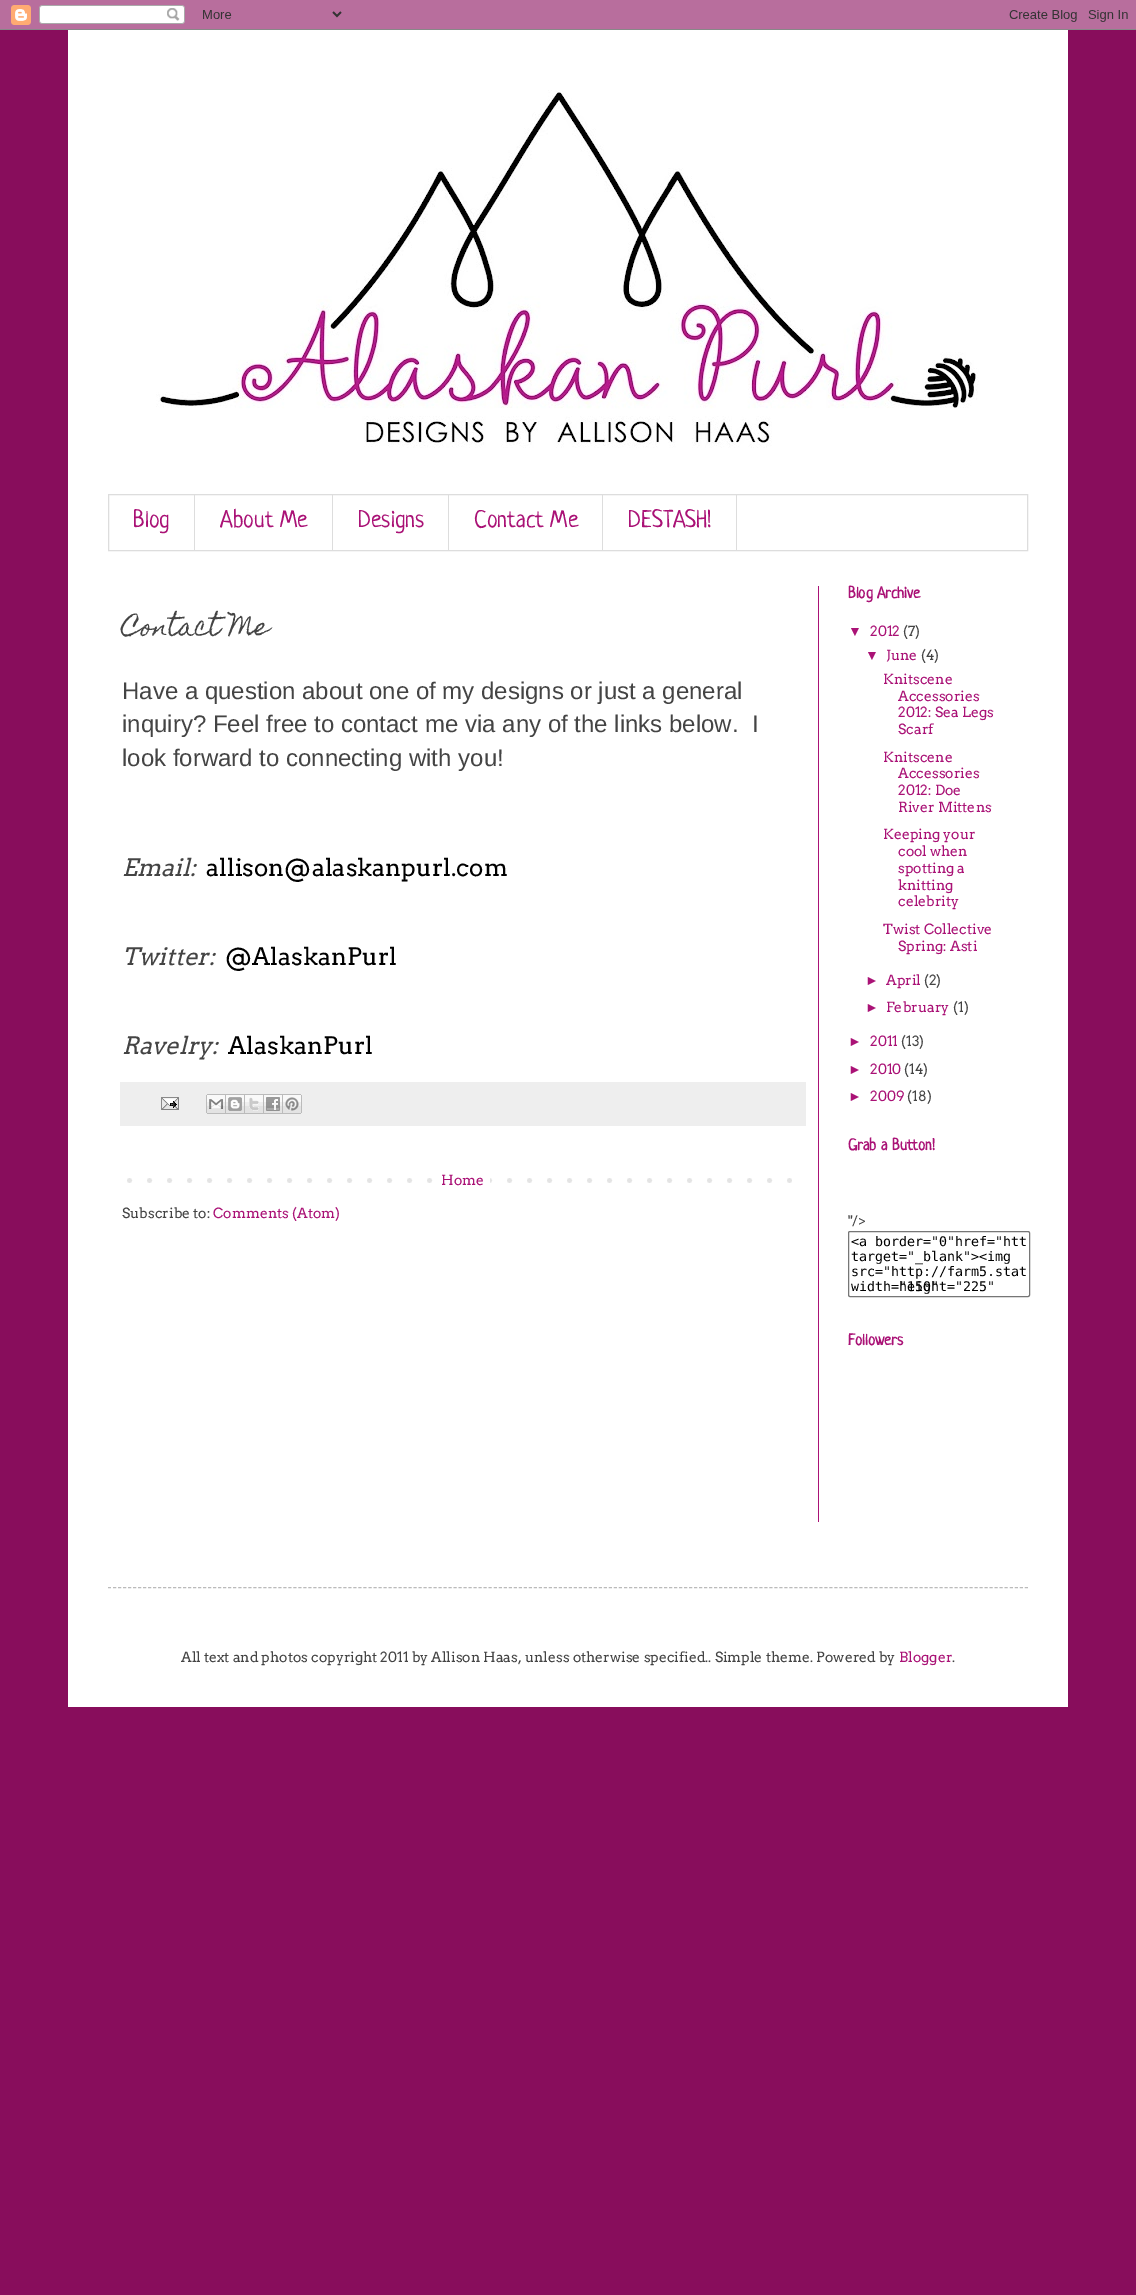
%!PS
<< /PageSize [1136 2295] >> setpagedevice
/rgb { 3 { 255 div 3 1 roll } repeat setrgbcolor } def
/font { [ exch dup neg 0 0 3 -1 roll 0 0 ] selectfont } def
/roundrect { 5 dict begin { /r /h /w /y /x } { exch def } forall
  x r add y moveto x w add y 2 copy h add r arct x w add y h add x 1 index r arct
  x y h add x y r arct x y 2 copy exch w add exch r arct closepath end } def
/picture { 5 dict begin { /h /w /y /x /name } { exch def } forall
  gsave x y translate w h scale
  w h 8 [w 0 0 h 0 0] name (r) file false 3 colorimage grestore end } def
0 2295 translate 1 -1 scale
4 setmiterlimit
136 13 92 rgb
0 0 1136 2295 rectfill
(img/1.rgb) 0 0 1136 30 picture
255 255 255 rgb
68 30 1000 1677 rectfill
(img/2.rgb) 156 90 823 358 picture
221 221 221 rgb
108.5 494.5 919 56 rectstroke
[
  [194 495 1 55 221 221 221]
  [332 495 1 55 221 221 221]
  [448 495 1 55 221 221 221]
  [602 495 1 55 221 221 221]
  [736 495 1 55 221 221 221]
  [120 1082 686 44 238 238 238]
] { aload pop rgb rectfill } forall
(img/3.rgb) 161 1097 18 13 picture
(img/4.rgb) 206 1094 20 20 picture
(img/5.rgb) 226 1094 19 20 picture
(img/6.rgb) 245 1094 19 20 picture
(img/7.rgb) 264 1094 19 20 picture
(img/8.rgb) 283 1094 19 20 picture
(img/9.rgb) 127 1178 665 5 picture
255 255 255 rgb
447 1178 43 5 rectfill
118 118 118 rgb
848.5 1231.5 181 65 1.5 roundrect stroke
170 18 118 rgb
818 586 1 936 rectfill
187 187 187 rgb
[3 2.01] 0 setdash
108 1587.5 moveto 1028 1587.5 lineto stroke
/Neucha-Regular 24 font
170 18 118 rgb
[
  [(Blog) 133 527]
  [(About Me) 220 527]
  [(Designs) 358 527]
  [(Contact Me) 474 527]
  [(DESTASH!) 628 527]
] { aload pop moveto show } forall
/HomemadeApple-Regular 24 font
68 68 68 rgb
122 635 moveto (Contact Me) show
/LiberationSans-Regular 24 font
[
  [(Have a question about one of my designs or just a general) 122 699]
  [(inquiry? Feel free to contact me via any of the links below.  I) 122 732]
  [(look forward to connecting with you!) 122 766]
] { aload pop moveto show } forall
/Arvo-Italic 24 font
122 876 moveto (Email:) show
/Arvo-Regular 24 font
0 0 0 rgb
206 876 moveto (allison@alaskanpurl.com) show
/Arvo-Italic 24 font
68 68 68 rgb
122 965 moveto (Twitter:) show
/Arvo-Regular 24 font
0 0 0 rgb
225 965 moveto (@AlaskanPurl) show
/Arvo-Italic 24 font
68 68 68 rgb
122 1054 moveto (Ravelry:) show
/Arvo-Regular 24 font
0 0 0 rgb
228 1054 moveto (AlaskanPurl) show
/Arvo-Regular 14 font
170 18 118 rgb
441 1185 moveto (Home) show
68 68 68 rgb
122 1218 moveto (Subscribe to:) show
170 18 118 rgb
213 1218 moveto (Comments \(Atom\)) show
/Neucha-Bold 16 font
848 598 moveto (Blog Archive) show
/LiberationSans-Regular 14 font
848 636 moveto (▼) show
/Arvo-Regular 14 font
870 636 moveto (2012) show
68 68 68 rgb
903 636 moveto (\(7\)) show
/LiberationSans-Regular 14 font
170 18 118 rgb
865 660 moveto (▼) show
/Arvo-Regular 14 font
886 660 moveto (June) show
68 68 68 rgb
921 660 moveto (\(4\)) show
170 18 118 rgb
[
  [(Knitscene) 883 684]
  [(Accessories) 898 701]
  [(2012: Sea Legs) 898 717]
  [(Scarf) 898 734]
  [(Knitscene) 883 762]
  [(Accessories) 898 778]
  [(2012: Doe) 898 795]
  [(River Mittens) 898 812]
  [(Keeping your) 883 839]
  [(cool when) 898 856]
  [(spotting a) 898 873]
  [(knitting) 898 890]
  [(celebrity) 898 906]
  [(Twist Collective) 883 934]
  [(Spring: Asti) 898 951]
] { aload pop moveto show } forall
/LiberationSans-Regular 14 font
865 985 moveto (►) show
/Arvo-Regular 14 font
886 985 moveto (April) show
68 68 68 rgb
924 985 moveto (\(2\)) show
/LiberationSans-Regular 14 font
170 18 118 rgb
865 1012 moveto (►) show
/Arvo-Regular 14 font
886 1012 moveto (February) show
68 68 68 rgb
953 1012 moveto (\(1\)) show
/LiberationSans-Regular 14 font
170 18 118 rgb
848 1046 moveto (►) show
/Arvo-Regular 14 font
870 1046 moveto (2011) show
68 68 68 rgb
901 1046 moveto (\(13\)) show
/LiberationSans-Regular 14 font
170 18 118 rgb
848 1074 moveto (►) show
/Arvo-Regular 14 font
870 1074 moveto (2010) show
68 68 68 rgb
904 1074 moveto (\(14\)) show
/LiberationSans-Regular 14 font
170 18 118 rgb
848 1101 moveto (►) show
/Arvo-Regular 14 font
870 1101 moveto (2009) show
68 68 68 rgb
907 1101 moveto (\(18\)) show
/Neucha-Bold 16 font
170 18 118 rgb
848 1150 moveto (Grab a Button!) show
/Arvo-Regular 14 font
68 68 68 rgb
848 1226 moveto ("/>) show
/DejaVuSansMono-Regular 13.3 font
0 0 0 rgb
[
  [(<a border="0"href="htt) 851 1246]
  [(target="_blank"><img) 851 1261]
  [(src="http://farm5.stat) 851 1276]
  [(width="150") 851 1291]
  [(height="225") 899 1291]
] { aload pop moveto show } forall
/Neucha-Bold 16 font
170 18 118 rgb
848 1345 moveto (Followers) show
/Arvo-Regular 14 font
68 68 68 rgb
181 1662 moveto (All text and photos copyright 2011 by Allison Haas, unless otherwise specified.. Simple theme. Powered by) show
170 18 118 rgb
899 1662 moveto (Blogger) show
68 68 68 rgb
952 1662 moveto (.) show
showpage
